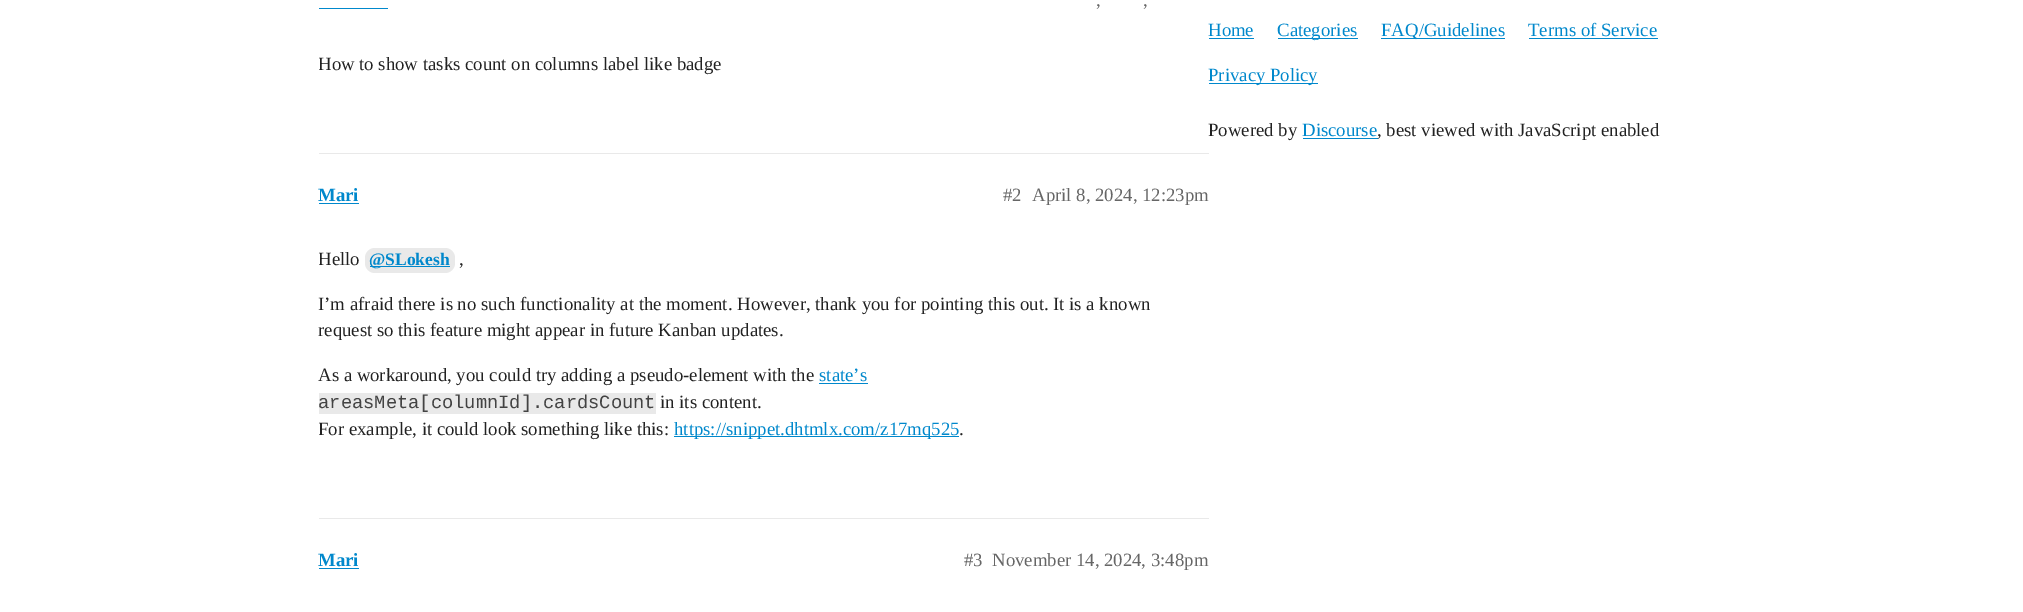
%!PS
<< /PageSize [2023 612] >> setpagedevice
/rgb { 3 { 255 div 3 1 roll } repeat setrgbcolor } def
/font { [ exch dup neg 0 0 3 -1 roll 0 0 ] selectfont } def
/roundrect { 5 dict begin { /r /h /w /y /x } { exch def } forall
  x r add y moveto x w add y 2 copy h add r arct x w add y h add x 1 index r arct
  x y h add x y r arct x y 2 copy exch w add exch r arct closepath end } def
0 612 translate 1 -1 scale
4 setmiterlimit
255 255 255 rgb
0 0 2023 612 rectfill
[
  [319 8 69 1 0 136 204]
  [319 153 890 1 233 233 233]
  [319 203 40 1 0 136 204]
] { aload pop rgb rectfill } forall
233 233 233 rgb
365 248 90 25 10 roundrect fill
[
  [370 266 80 1 0 136 204]
  [819 383 49 1 0 136 204]
  [319 393 337 21 233 233 233]
  [674 436 285 1 0 136 204]
  [319 518 890 1 233 233 233]
  [319 568 40 1 0 136 204]
  [1209 38 45 1 0 136 204]
  [1278 38 80 1 0 136 204]
  [1381 38 124 1 0 136 204]
  [1529 38 129 1 0 136 204]
  [1209 83 109 1 0 136 204]
  [1303 138 75 1 0 136 204]
] { aload pop rgb rectfill } forall
/LiberationSerif-Regular 18.75 font
102 102 102 rgb
1096 6 moveto (,) show
1143 6 moveto (,) show
gsave
319 33 890 63 rectclip
34 34 34 rgb
318 70 moveto (How to show tasks count on columns label like badge) show
grestore
/LiberationSerif-Bold 18.75 font
0 136 204 rgb
318 201 moveto (Mari) show
/LiberationSerif-Regular 18.75 font
102 102 102 rgb
1003 201 moveto (#2) show
1032 201 moveto (April 8, 2024, 12:23pm) show
gsave
319 228 890 233 rectclip
34 34 34 rgb
318 265 moveto (Hello) show
grestore
/LiberationSerif-Bold 17.5 font
0 136 204 rgb
369 265 moveto (@SLokesh) show
/LiberationSerif-Regular 18.75 font
34 34 34 rgb
[
  [(,) 459 265]
  [(I’m afraid there is no such functionality at the moment. However, thank you for pointing this out. It is a known) 318 310]
  [(request so this feature might appear in future Kanban updates.) 318 336]
  [(As a workaround, you could try adding a pseudo-element with the) 318 381]
] { aload pop moveto show } forall
0 136 204 rgb
819 381 moveto (state’s) show
/LiberationMono-Regular 18.75 font
67 67 67 rgb
318 408 moveto (areasMeta[columnId].cardsCount) show
/LiberationSerif-Regular 18.75 font
34 34 34 rgb
660 408 moveto (in its content.) show
gsave
319 228 890 233 rectclip
318 435 moveto (For example, it could look something like this:) show
grestore
0 136 204 rgb
674 435 moveto (https://snippet.dhtmlx.com/z17mq525) show
34 34 34 rgb
959 435 moveto (.) show
/LiberationSerif-Bold 18.75 font
0 136 204 rgb
318 566 moveto (Mari) show
/LiberationSerif-Regular 18.75 font
102 102 102 rgb
964 566 moveto (#3) show
992 566 moveto (November 14, 2024, 3:48pm) show
0 136 204 rgb
[
  [(Home) 1208 36]
  [(Categories) 1277 36]
  [(FAQ/Guidelines) 1381 36]
  [(Terms of Service) 1528 36]
  [(Privacy Policy) 1208 81]
] { aload pop moveto show } forall
34 34 34 rgb
1208 136 moveto (Powered by) show
0 136 204 rgb
1302 136 moveto (Discourse) show
34 34 34 rgb
1377 136 moveto (, best viewed with JavaScript enabled) show
showpage
